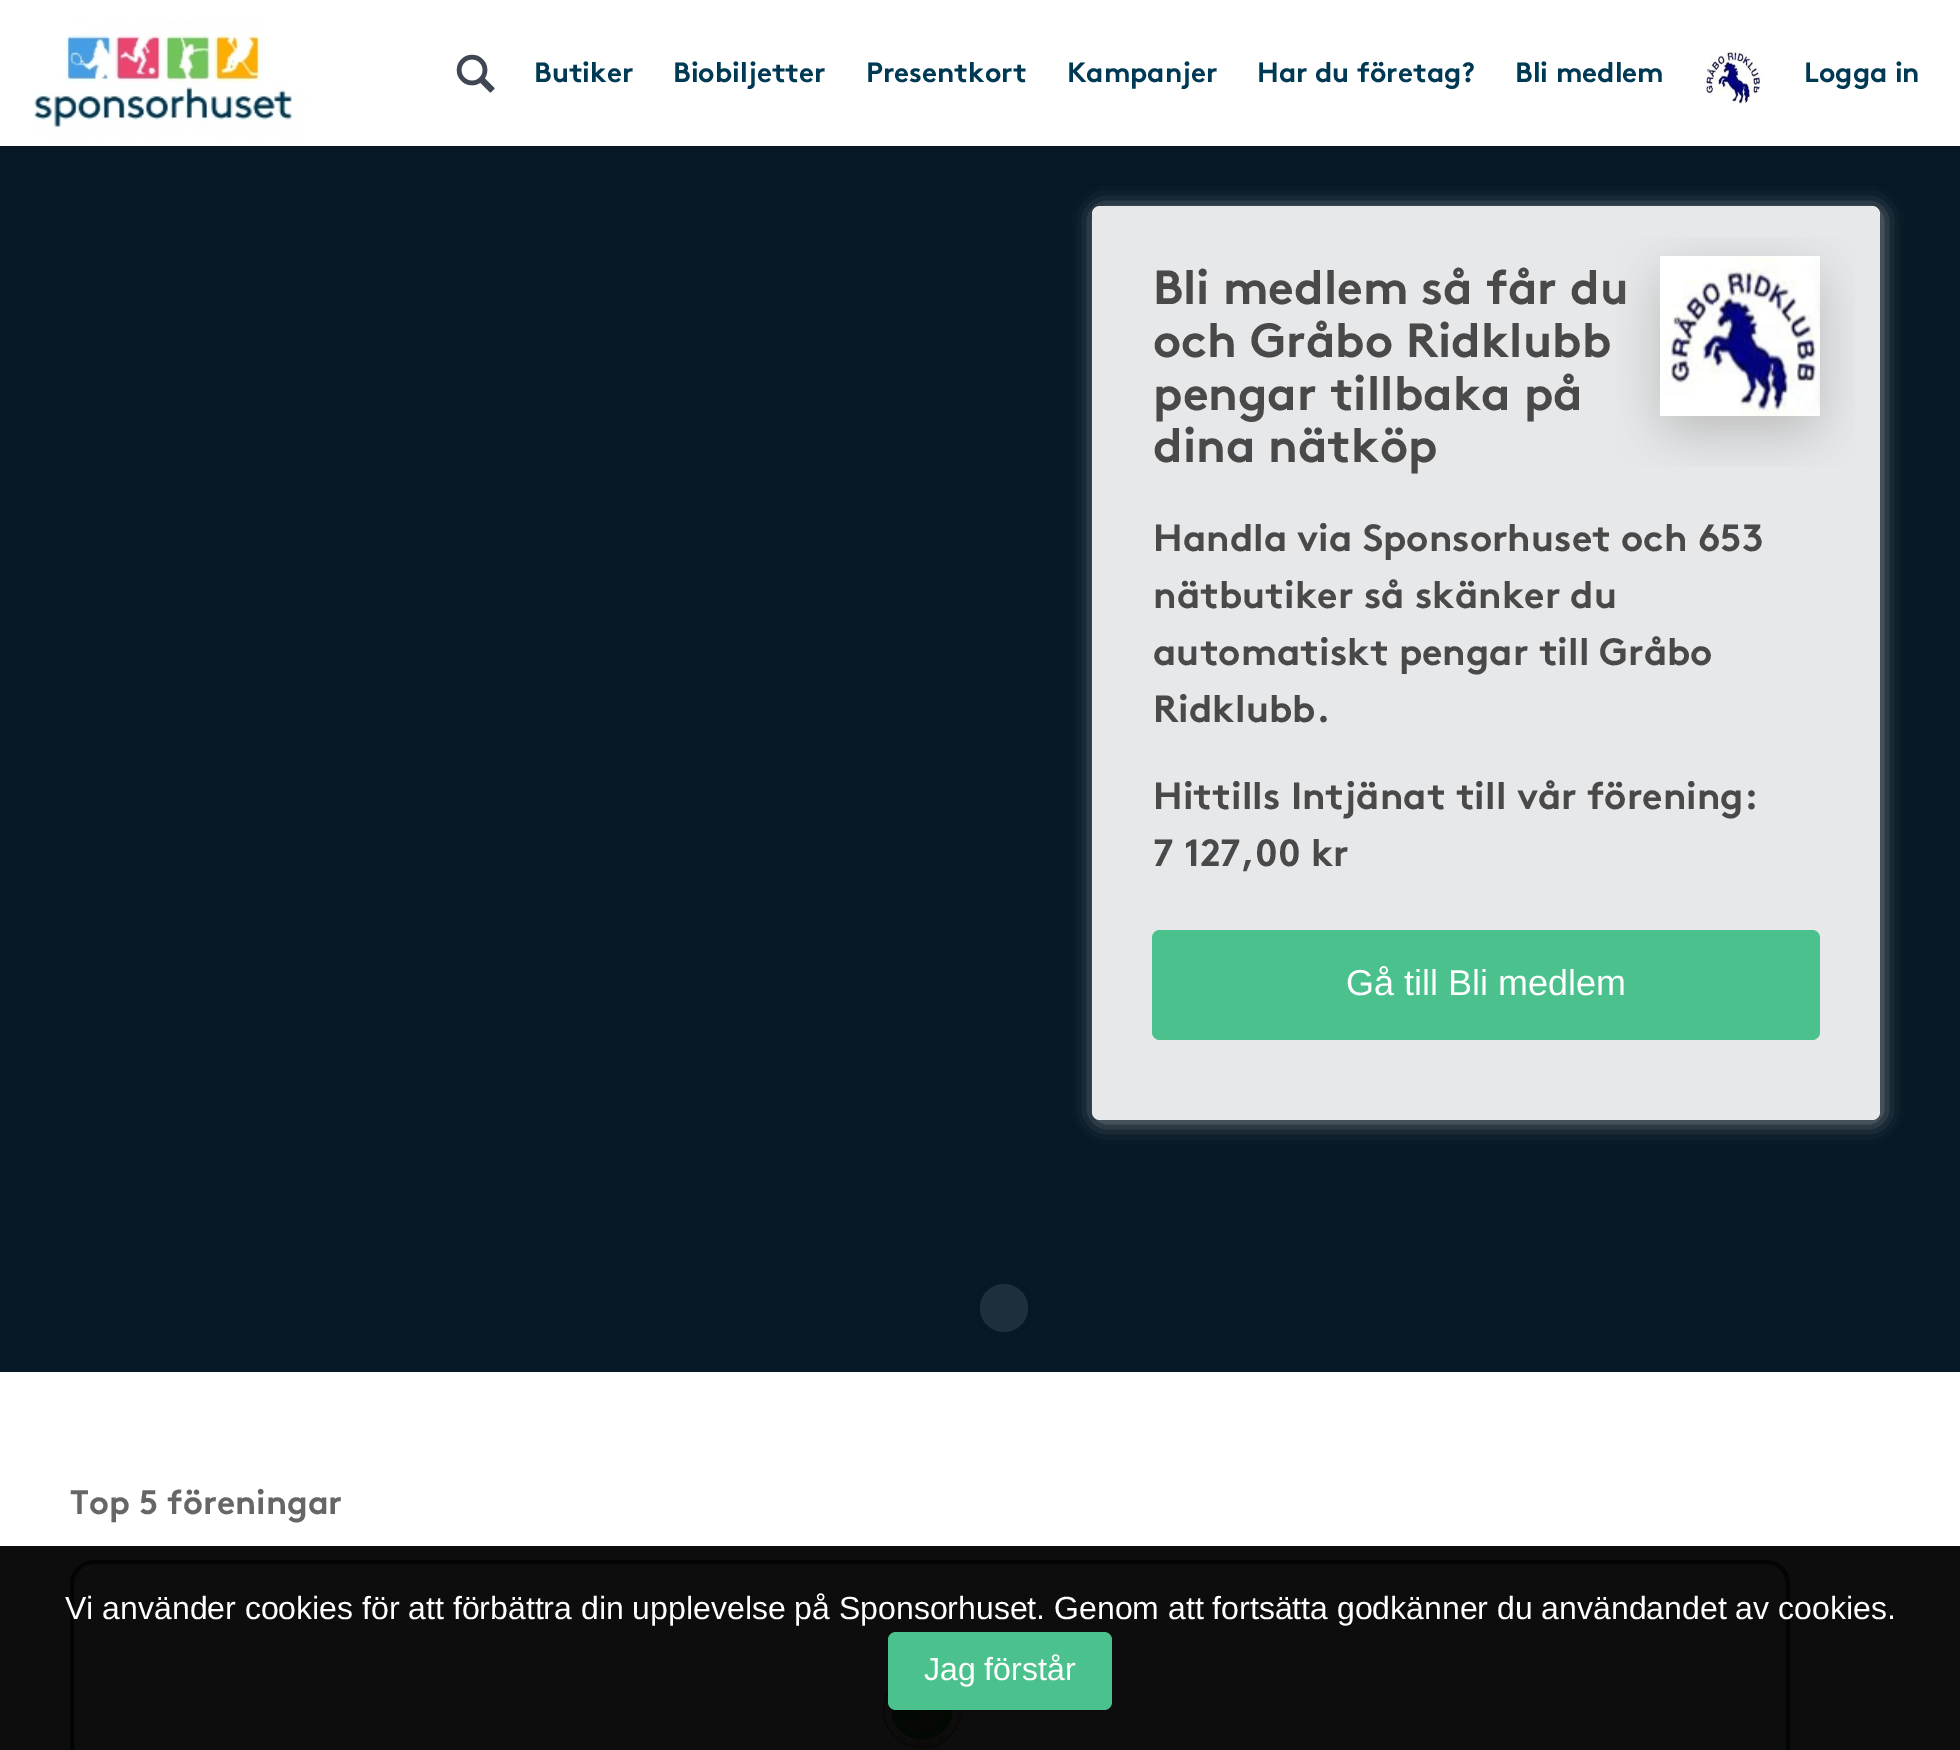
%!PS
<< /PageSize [1960 1750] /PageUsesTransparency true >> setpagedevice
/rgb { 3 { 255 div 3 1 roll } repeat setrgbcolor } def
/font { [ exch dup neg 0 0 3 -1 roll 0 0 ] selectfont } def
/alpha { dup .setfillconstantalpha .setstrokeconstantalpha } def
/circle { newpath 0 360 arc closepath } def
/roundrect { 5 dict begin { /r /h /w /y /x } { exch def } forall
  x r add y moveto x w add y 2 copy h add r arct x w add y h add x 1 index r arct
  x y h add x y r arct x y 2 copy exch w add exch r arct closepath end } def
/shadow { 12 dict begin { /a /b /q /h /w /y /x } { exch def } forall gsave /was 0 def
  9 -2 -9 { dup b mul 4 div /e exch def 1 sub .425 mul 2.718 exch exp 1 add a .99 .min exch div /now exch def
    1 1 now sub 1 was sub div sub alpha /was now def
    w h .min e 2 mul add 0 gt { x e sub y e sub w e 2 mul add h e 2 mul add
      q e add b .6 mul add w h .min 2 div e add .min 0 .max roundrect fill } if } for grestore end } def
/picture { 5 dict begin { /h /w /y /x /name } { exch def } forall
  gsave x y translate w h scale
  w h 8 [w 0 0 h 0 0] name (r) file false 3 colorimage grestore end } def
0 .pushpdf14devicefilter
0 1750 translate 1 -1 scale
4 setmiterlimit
255 255 255 rgb
0 0 1960 1750 rectfill
13 13 13 rgb
0 1546 1960 204 rectfill
(img/1.rgb) 33 20 273 120 picture
(img/2.rgb) 456 54 39 39 picture
(img/3.rgb) 1704 46 58 60 picture
6 23 37 rgb
0 146 1960 1226 rectfill
gsave
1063 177 moveto 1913 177 lineto 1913 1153 lineto 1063 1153 lineto closepath 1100 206 moveto 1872 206 lineto 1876.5 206 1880 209.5 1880 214 curveto 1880 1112 lineto 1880 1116.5 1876.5 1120 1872 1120 curveto 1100 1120 lineto 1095.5 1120 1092 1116.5 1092 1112 curveto 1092 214 lineto 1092 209.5 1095.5 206 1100 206 curveto closepath eoclip newpath
255 255 255 rgb
1094 208 788 914 8 10 0.5 shadow
grestore
0.9 alpha
255 255 255 rgb
1092 206 788 914 8 roundrect fill
1 alpha
75 193 141 rgb
1152 930 668 110 8 roundrect fill
31 46 59 rgb
1004 1308 24 circle fill
2 4 5 rgb
4 setlinewidth
72 1562 1716 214 22 roundrect stroke
(img/5.rgb) 882 1669 81 80 picture
75 193 141 rgb
888 1632 224 78 8 roundrect fill
/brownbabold-Bold 28 font
0 57 83 rgb
[
  [(Butiker) 534 82]
  [(Biobiljetter) 673 82]
  [(Presentkort) 866 82]
  [(Kampanjer) 1067 82]
  [(Har du företag?) 1257 82]
  [(Bli medlem) 1515 82]
  [(Logga in) 1804 82]
] { aload pop moveto show } forall
/brownbabold-Bold 48 font
73 73 73 rgb
1153 304 moveto (Bli medlem så får du) show
(img/4.rgb) 1616 237 239 230 picture
[
  [(och Gråbo Ridklubb) 1153 357]
  [(pengar tillbaka på) 1153 410]
  [(dina nätköp) 1153 462]
] { aload pop moveto show } forall
/brownbabold-Bold 38 font
[
  [(Handla via Sponsorhuset och 653) 1153 551]
  [(nätbutiker så skänker du) 1153 608]
  [(automatiskt pengar till Gråbo) 1153 665]
  [(Ridklubb.) 1153 722]
  [(Hittills Intjänat till vår förening:) 1153 809]
  [(7 127,00 kr) 1153 866]
] { aload pop moveto show } forall
/LiberationSans-Regular 36 font
255 255 255 rgb
1346 995 moveto (Gå till Bli medlem) show
/brownbabold-Bold 34 font
102 102 102 rgb
70 1514 moveto (Top 5 föreningar) show
/LiberationSans-Regular 32 font
255 255 255 rgb
65 1619 moveto (Vi använder cookies för att förbättra din upplevelse på Sponsorhuset. Genom att fortsätta godkänner du användandet av cookies.) show
924 1680 moveto (Jag förstår) show
.poppdf14devicefilter showpage
